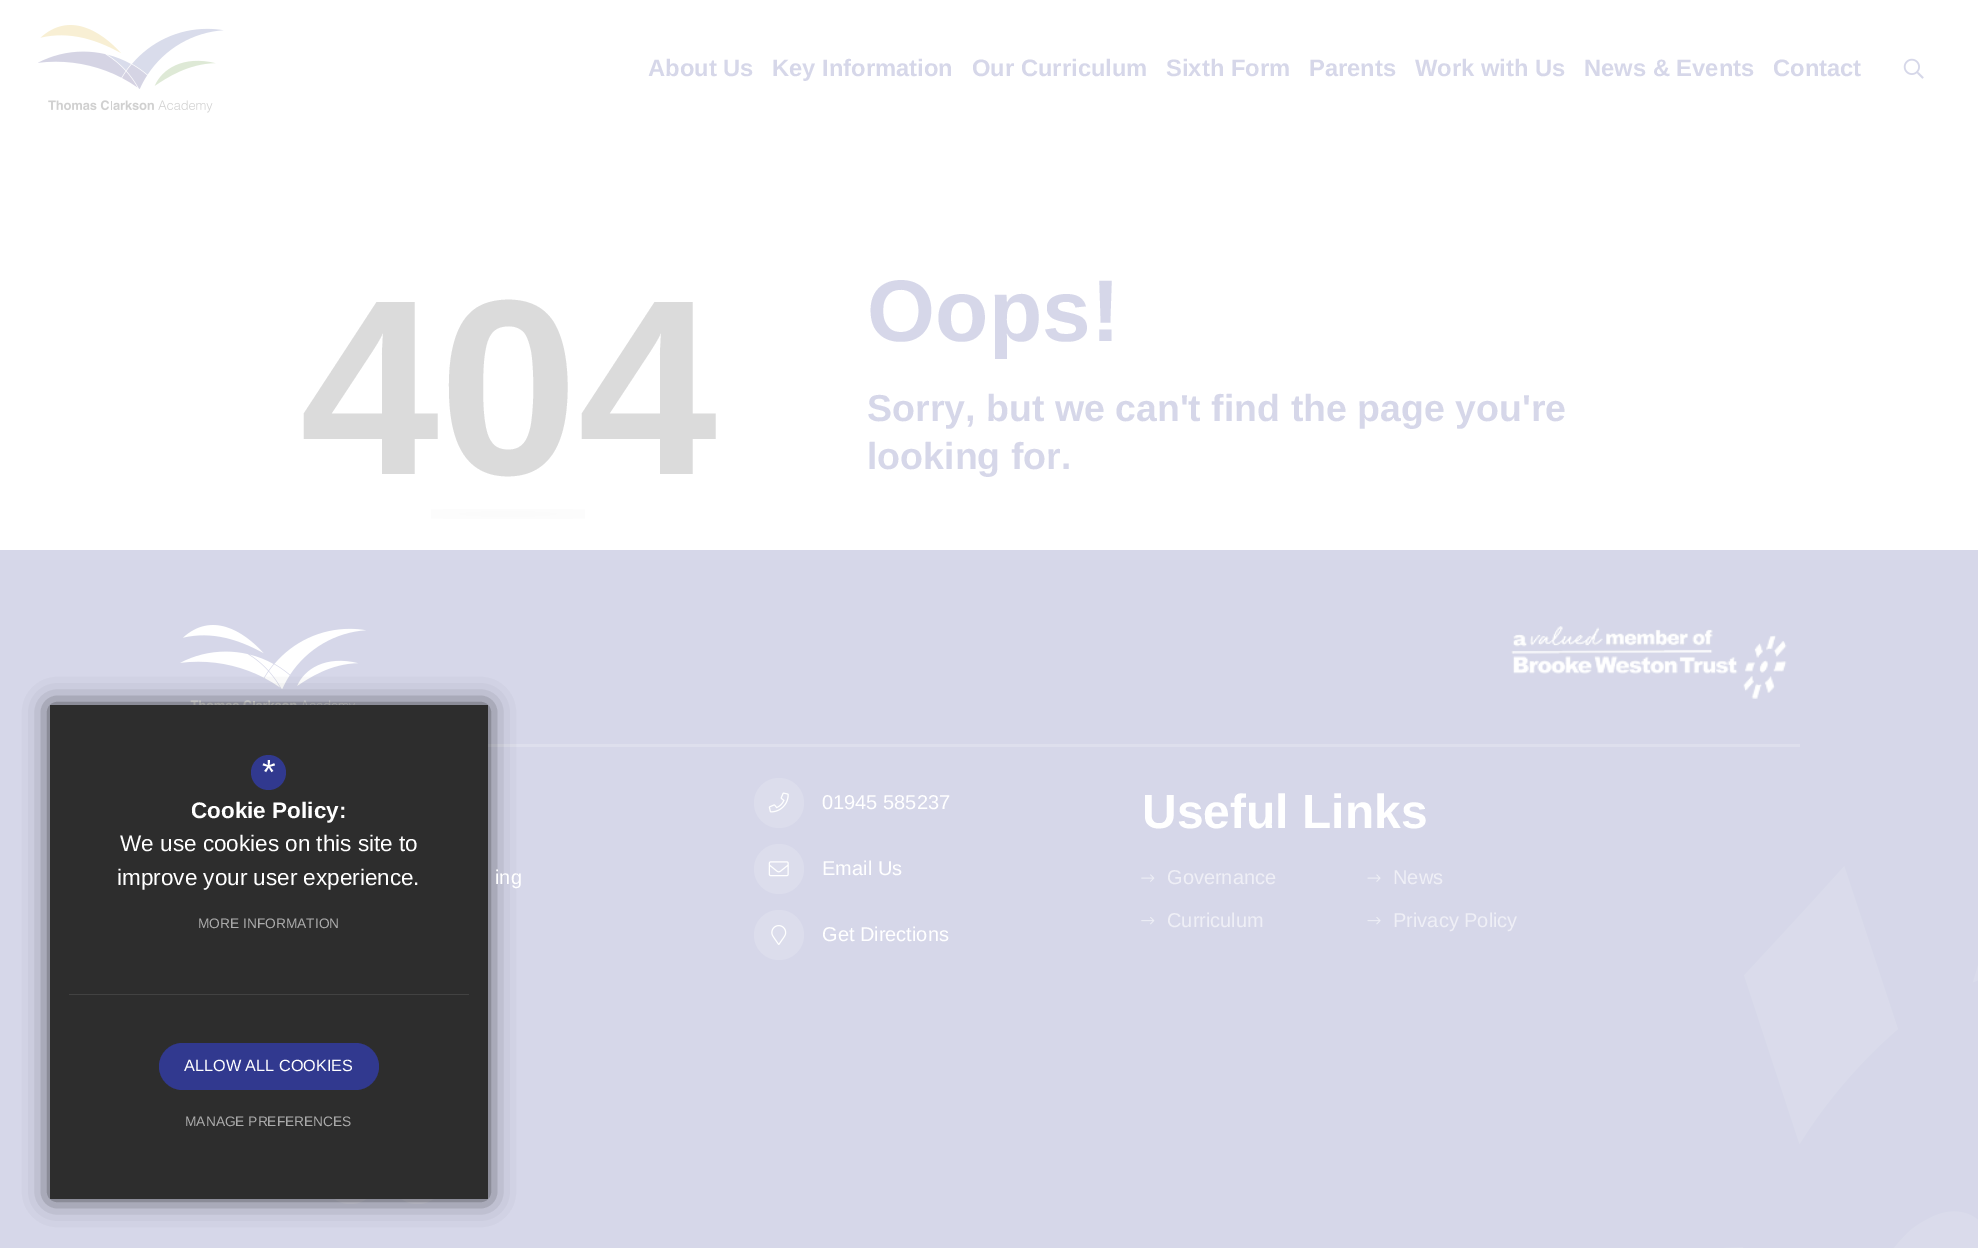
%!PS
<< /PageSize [1978 1248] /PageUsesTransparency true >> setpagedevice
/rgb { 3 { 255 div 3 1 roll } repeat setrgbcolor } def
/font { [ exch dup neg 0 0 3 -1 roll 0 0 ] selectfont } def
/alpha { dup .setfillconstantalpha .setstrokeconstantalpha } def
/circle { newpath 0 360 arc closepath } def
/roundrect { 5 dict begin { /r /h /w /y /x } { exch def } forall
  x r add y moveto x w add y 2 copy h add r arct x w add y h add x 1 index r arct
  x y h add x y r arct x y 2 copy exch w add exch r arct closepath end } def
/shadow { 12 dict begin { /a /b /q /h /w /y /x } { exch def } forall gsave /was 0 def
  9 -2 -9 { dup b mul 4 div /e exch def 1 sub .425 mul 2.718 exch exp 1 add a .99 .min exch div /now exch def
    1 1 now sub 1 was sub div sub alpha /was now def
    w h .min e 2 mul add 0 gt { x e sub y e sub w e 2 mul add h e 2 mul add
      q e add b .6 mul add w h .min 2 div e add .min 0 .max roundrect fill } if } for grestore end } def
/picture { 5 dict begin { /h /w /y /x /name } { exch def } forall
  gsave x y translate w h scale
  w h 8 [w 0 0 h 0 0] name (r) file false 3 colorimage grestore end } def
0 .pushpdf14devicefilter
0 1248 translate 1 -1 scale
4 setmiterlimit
255 255 255 rgb
0 0 1978 1248 rectfill
(img/1.rgb) 38 25 186 88 picture
(img/2.rgb) 1903 58 21 21 picture
gsave 431 509 moveto 585 509 lineto 585 519 lineto 431 519 lineto closepath clip newpath 508 514 translate 294 18 scale
<< /ShadingType 3 /ColorSpace /DeviceRGB /Coords [0 0 0 0 0 1] /Extend [true true] /Function << /FunctionType 3 /Domain [0 1] /Functions [<< /FunctionType 2 /Domain [0 1] /C0 [0.984 0.984 0.984] /C1 [0.996 0.996 0.996] /N 1 >> << /FunctionType 2 /Domain [0 1] /C0 [0.996 0.996 0.996] /C1 [1 1 1] /N 1 >>] /Bounds [0.53] /Encode [0 1 0 1] >> >> shfill grestore
214 215 233 rgb
0 550 1978 698 rectfill
222 223 237 rgb
488 744 1312 3 rectfill
(img/3.rgb) 180 625 186 80 picture
220 221 236 rgb
350.5 1176.5 27.5 circle fill
417.5 1176.5 27.5 circle fill
0 0 0 rgb
50 705 438 494 0 12.5 0.7 shadow
45 45 45 rgb
50 705 438 494 rectfill
66 66 66 rgb
69 994 400 1 rectfill
49 57 143 rgb
268.5 772.5 17.5 circle fill
159 1043 220 47 23.5 roundrect fill
(img/4.rgb) 1511 626 276 73 picture
220 221 236 rgb
779 803 25 circle fill
(img/5.rgb) 768 792 21 21 picture
779 869 25 circle fill
(img/6.rgb) 768 861 21 16 picture
779 935 25 circle fill
(img/7.rgb) 771 925 16 20 picture
(img/8.rgb) 1141 874 14 8 picture
(img/9.rgb) 1367 874 14 8 picture
(img/10.rgb) 1141 917 14 8 picture
(img/11.rgb) 1367 917 14 8 picture
(img/12.rgb) 1724 866 254 382 picture
/LiberationSans-Bold 23.75 font
214 215 233 rgb
[
  [(About Us) 648 76]
  [(Key Information) 772 76]
  [(Our Curriculum) 972 76]
  [(Sixth Form) 1166 76]
  [(Parents) 1309 76]
  [(Work with Us) 1415 76]
  [(News & Events) 1584 76]
  [(Contact) 1773 76]
] { aload pop moveto show } forall
/LiberationSans-Bold 250 font
219 219 219 rgb
300 474 moveto (404) show
/LiberationSans-Bold 87.5 font
214 215 233 rgb
867 341 moveto (Oops!) show
/LiberationSans-Bold 37.5 font
867 421 moveto (Sorry, but we can't find the page you're) show
867 469 moveto (looking for.) show
/LiberationSans-Regular 35 font
255 255 255 rgb
262 784 moveto (*) show
/LiberationSans-Bold 22.5 font
191 818 moveto (Cookie Policy:) show
/LiberationSans-Regular 22.5 font
120 851 moveto (We use cookies on this site to) show
117 885 moveto (improve your user experience.) show
/LiberationSans-Regular 13.75 font
171 171 171 rgb
198 928 moveto (MORE INFORMATION) show
/LiberationSans-Regular 16.25 font
255 255 255 rgb
184 1071 moveto (ALLOW ALL COOKIES) show
/LiberationSans-Regular 13.75 font
171 171 171 rgb
185 1126 moveto (MANAGE PREFERENCES) show
/LiberationSans-Regular 20 font
255 255 255 rgb
[
  [(ing) 495 884]
  [(01945 585237) 822 809]
  [(Email Us) 822 875]
  [(Get Directions) 822 941]
] { aload pop moveto show } forall
/LiberationSans-Bold 48 font
1142 828 moveto (Useful Links) show
/LiberationSans-Regular 20 font
239 239 246 rgb
[
  [(Governance) 1167 884]
  [(News) 1393 884]
  [(Curriculum) 1167 927]
  [(Privacy Policy) 1393 927]
] { aload pop moveto show } forall
.poppdf14devicefilter showpage
